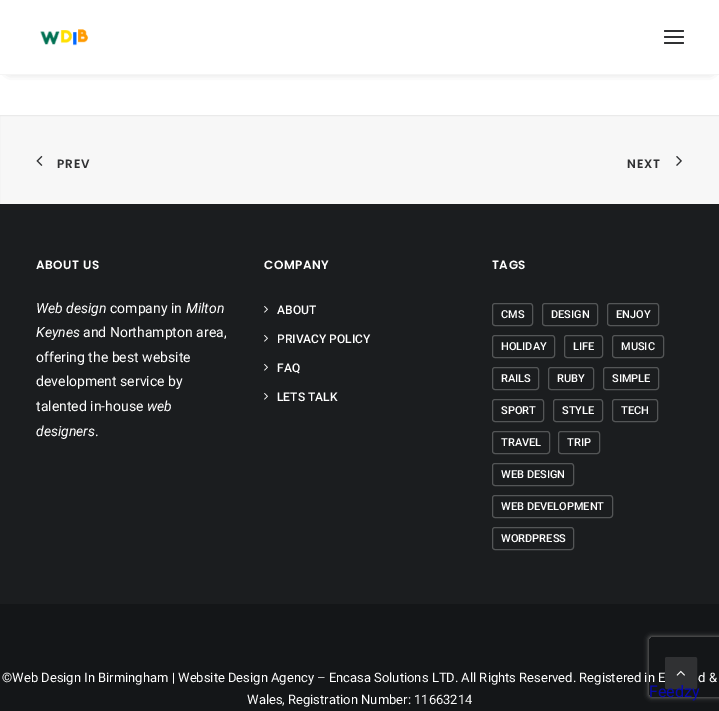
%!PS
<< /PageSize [719 711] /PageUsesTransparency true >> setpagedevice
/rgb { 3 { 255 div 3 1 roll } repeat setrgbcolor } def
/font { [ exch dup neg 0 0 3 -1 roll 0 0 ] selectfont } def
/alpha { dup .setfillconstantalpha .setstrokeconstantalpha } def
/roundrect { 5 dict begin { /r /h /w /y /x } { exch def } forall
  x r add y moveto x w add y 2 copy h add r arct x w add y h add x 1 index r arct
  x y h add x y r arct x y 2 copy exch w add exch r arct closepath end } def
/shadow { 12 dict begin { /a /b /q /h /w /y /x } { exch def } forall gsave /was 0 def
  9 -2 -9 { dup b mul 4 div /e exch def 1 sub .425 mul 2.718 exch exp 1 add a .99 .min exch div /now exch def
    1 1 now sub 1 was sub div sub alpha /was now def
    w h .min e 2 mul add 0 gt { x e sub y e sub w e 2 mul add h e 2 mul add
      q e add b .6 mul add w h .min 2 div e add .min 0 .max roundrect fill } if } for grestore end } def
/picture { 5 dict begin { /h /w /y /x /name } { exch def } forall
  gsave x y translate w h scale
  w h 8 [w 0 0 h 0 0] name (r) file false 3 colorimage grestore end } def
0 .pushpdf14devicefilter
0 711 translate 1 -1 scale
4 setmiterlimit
20 22 24 rgb
0 0 719 711 rectfill
255 255 255 rgb
0 75 719 40 rectfill
0 0 0 rgb
10 14 700 55 0 5 0.6 shadow
255 255 255 rgb
0 0 719 74 rectfill
245 245 245 rgb
0 74 719 1 rectfill
(img/1.rgb) 40 29 49 17 picture
48 49 51 rgb
664 36 20 2 1 roundrect fill
664 30 20 2 1 roundrect fill
664 42 20 2 1 roundrect fill
247 247 247 rgb
-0.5 115.5 moveto 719.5 115.5 lineto 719.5 204.5 lineto -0.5 204.5 lineto closepath gsave fill grestore
234 234 234 rgb
stroke
(img/2.rgb) 36 155 7 11 picture
(img/3.rgb) 676 156 6 10 picture
27 29 31 rgb
0 204 719 400 rectfill
(img/4.rgb) 264 306 4 7 picture
(img/4.rgb) 264 335 4 7 picture
(img/4.rgb) 264 364 4 7 picture
(img/4.rgb) 264 393 4 7 picture
84 86 87 rgb
492.5 303.5 40 22 2.5 roundrect stroke
542.5 303.5 55 22 2.5 roundrect stroke
607.5 303.5 51 22 2.5 roundrect stroke
492.5 335.5 62 22 2.5 roundrect stroke
564.5 335.5 38 22 2.5 roundrect stroke
612.5 335.5 51 22 2.5 roundrect stroke
492.5 367.5 46 22 2.5 roundrect stroke
548.5 367.5 45 22 2.5 roundrect stroke
603.5 367.5 55 22 2.5 roundrect stroke
492.5 399.5 51 22 2.5 roundrect stroke
553.5 399.5 49 22 2.5 roundrect stroke
612.5 399.5 45 22 2.5 roundrect stroke
492.5 431.5 57 22 2.5 roundrect stroke
558.5 431.5 41 22 2.5 roundrect stroke
492.5 463.5 81 22 2.5 roundrect stroke
492.5 495.5 120 22 2.5 roundrect stroke
492.5 527.5 81 22 2.5 roundrect stroke
gsave
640 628 moveto 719 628 lineto 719 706 lineto 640 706 lineto closepath 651 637 moveto 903 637 lineto 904 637 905 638 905 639 curveto 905 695 lineto 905 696 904 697 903 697 curveto 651 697 lineto 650 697 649 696 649 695 curveto 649 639 lineto 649 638 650 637 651 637 curveto closepath eoclip newpath
128 128 128 rgb
649 637 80 60 2 2.5 1 shadow
grestore
/Poppins-SemiBold 12 font
48 49 51 rgb
57 168 moveto 1 0 (PREV) ashow
627 168 moveto 1 0 (NEXT) ashow
255 255 255 rgb
36 269 moveto 0.5 0 (ABOUT US) ashow
/Roboto-Italic 14 font
36 313 moveto (Web design) show
/Roboto-Regular 14 font
110 313 moveto (company in) show
/Roboto-Italic 14 font
186 313 moveto (Milton) show
36 337 moveto (Keynes) show
/Roboto-Regular 14 font
[
  [(and Northampton area,) 83 337]
  [(offering the best website) 36 362]
  [(development service by) 36 386]
  [(talented in-house) 36 411]
] { aload pop moveto show } forall
/Roboto-Italic 14 font
147 411 moveto (web) show
36 436 moveto (designers) show
/Roboto-Regular 14 font
95 436 moveto (.) show
/Poppins-SemiBold 12 font
264 269 moveto 0.5 0 (COMPANY) ashow
/Roboto-Medium 12 font
[
  [(ABOUT) 277 314]
  [(PRIVACY POLICY) 277 343]
  [(FAQ) 277 372]
  [(LETS TALK) 277 401]
] { aload pop moveto show } forall
/Poppins-SemiBold 12 font
492 269 moveto 0.5 0 (TAGS) ashow
/Roboto-Medium 11 font
[
  [(CMS) 501 318]
  [(DESIGN) 551 318]
  [(ENJOY) 616 318]
  [(HOLIDAY) 501 350]
  [(LIFE) 573 350]
  [(MUSIC) 621 350]
  [(RAILS) 501 382]
  [(RUBY) 557 382]
  [(SIMPLE) 612 382]
  [(SPORT) 501 414]
  [(STYLE) 562 414]
  [(TECH) 621 414]
  [(TRAVEL) 501 446]
  [(TRIP) 567 446]
  [(WEB DESIGN) 501 478]
  [(WEB DEVELOPMENT) 501 510]
  [(WORDPRESS) 501 542]
] { aload pop moveto show } forall
/Roboto-Regular 13 font
[
  [(©Web Design In Birmingham | Website Design Agency – Encasa Solutions LTD. All Rights Reserved. Registered in E) 2 682]
  [(d &) 698 682]
  [(Wales, Registration Number: 11663214) 247 704]
] { aload pop moveto show } forall
48 49 51 rgb
665.5 657.5 31 31 1.5 roundrect gsave fill grestore
stroke
(img/5.rgb) 676 670 9 6 picture
/Roboto-Regular 16 font
7 8 175 rgb
649 697 moveto (Feedzy) show
.poppdf14devicefilter showpage
